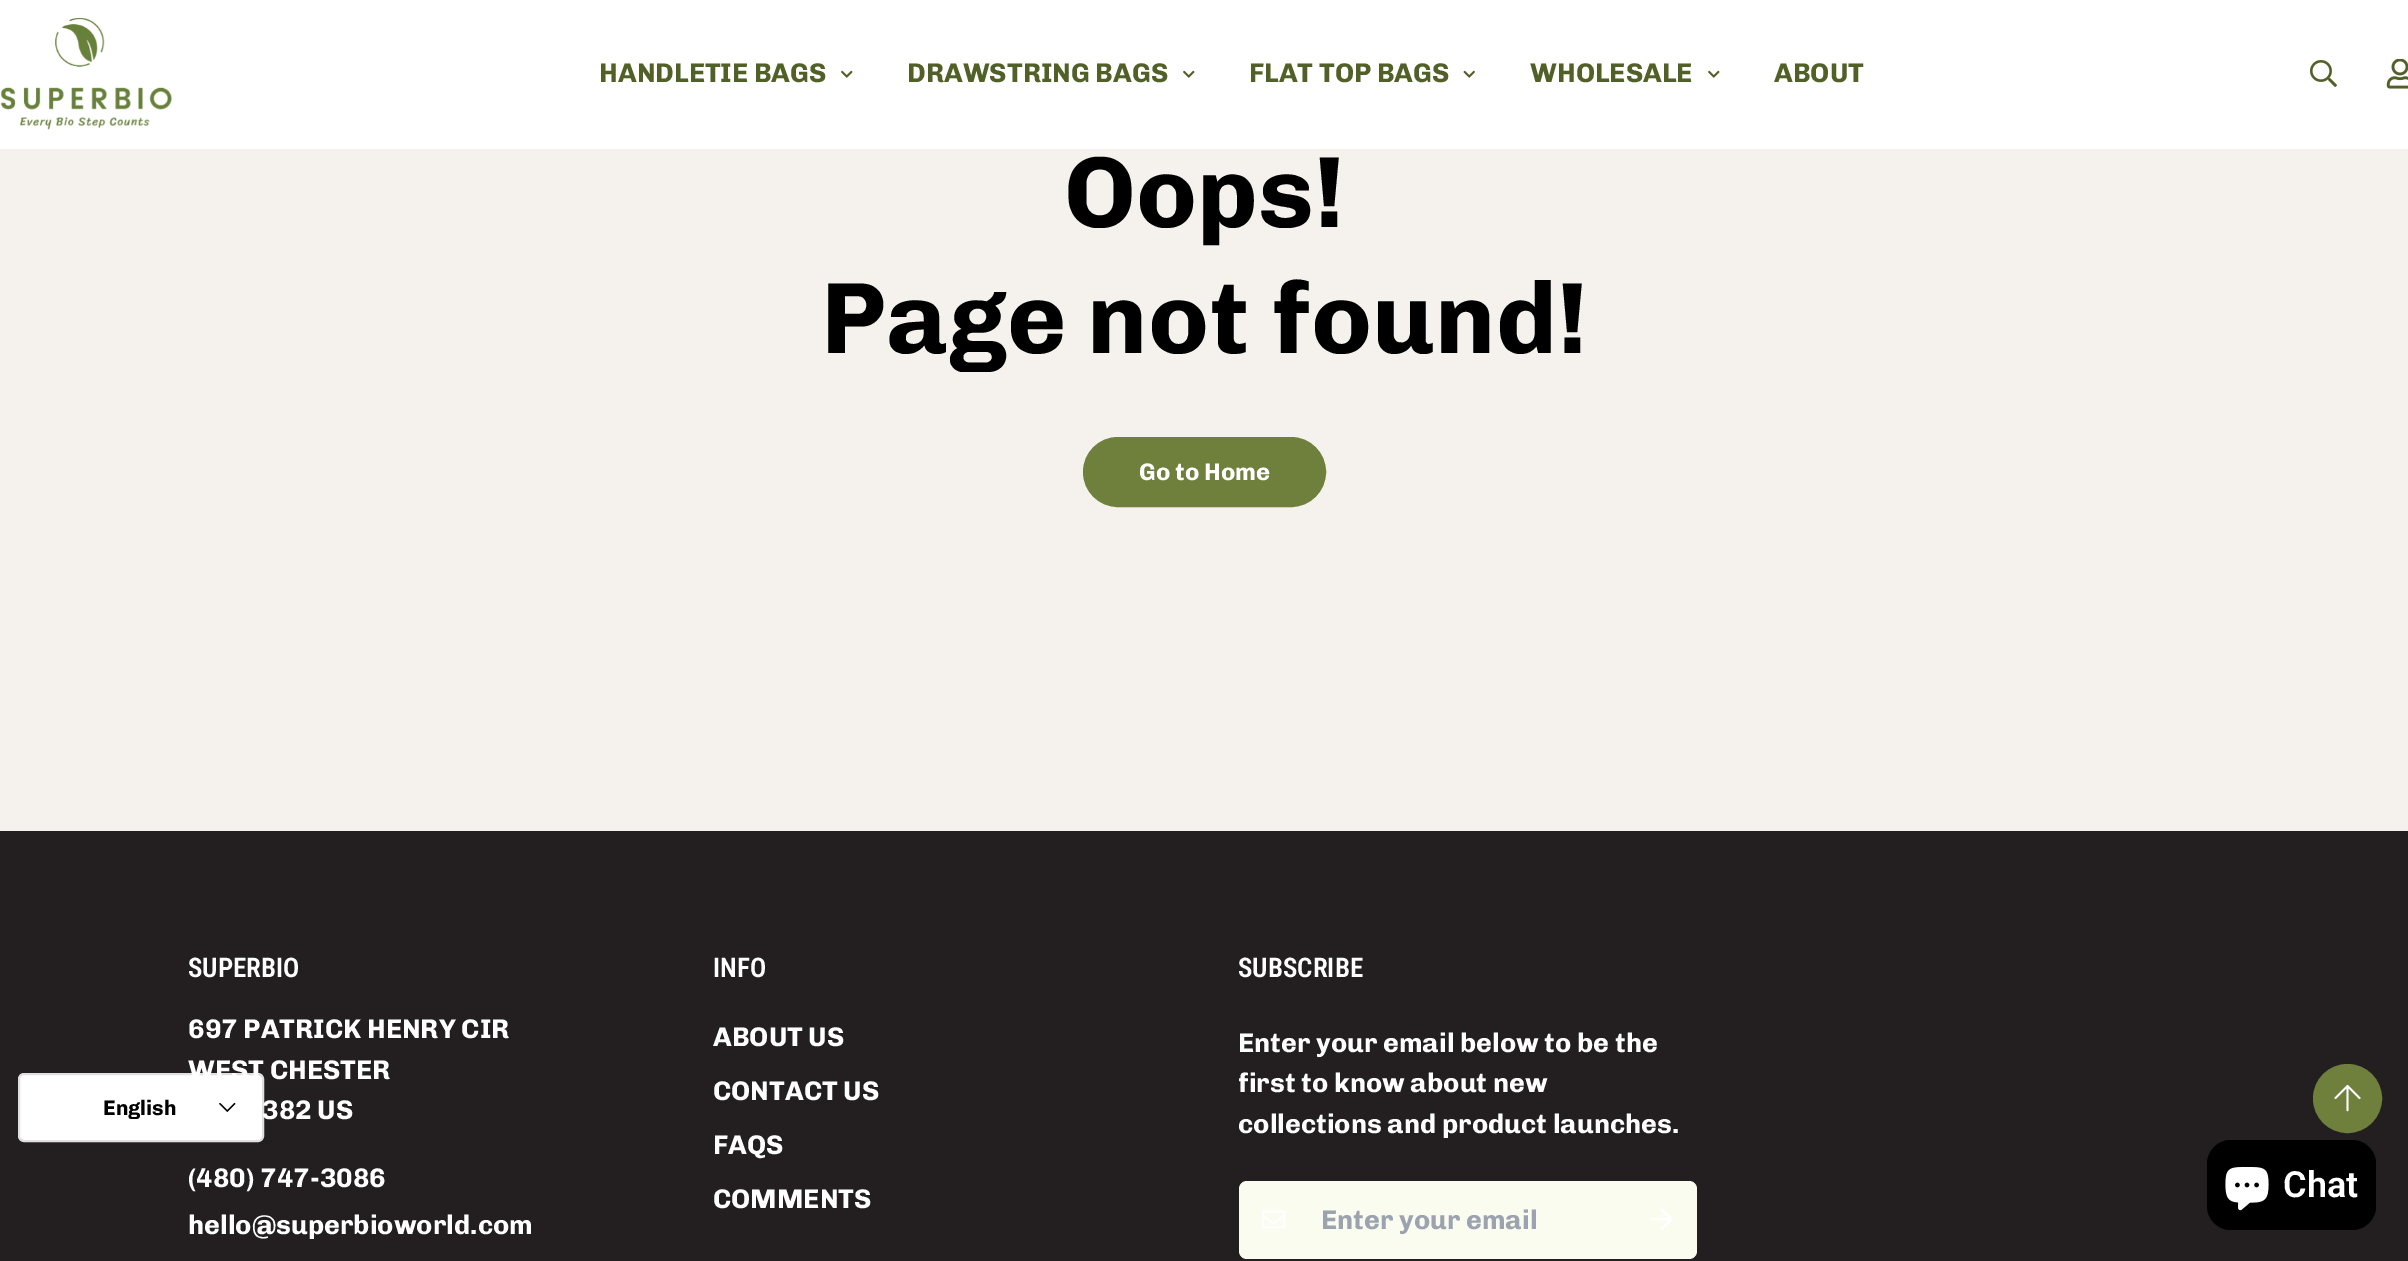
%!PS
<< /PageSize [2408 1261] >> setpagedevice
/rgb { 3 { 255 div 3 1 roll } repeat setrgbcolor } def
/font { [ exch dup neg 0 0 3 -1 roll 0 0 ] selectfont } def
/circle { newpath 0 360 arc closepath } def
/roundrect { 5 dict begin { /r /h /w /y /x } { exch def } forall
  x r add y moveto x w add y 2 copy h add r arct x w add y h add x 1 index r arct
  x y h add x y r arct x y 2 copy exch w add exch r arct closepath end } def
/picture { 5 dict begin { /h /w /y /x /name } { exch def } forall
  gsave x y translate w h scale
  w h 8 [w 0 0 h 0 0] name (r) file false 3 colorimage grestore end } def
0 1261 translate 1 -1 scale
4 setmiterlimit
35 31 32 rgb
0 0 2408 1261 rectfill
255 255 255 rgb
0 0 2408 149 rectfill
(img/1.rgb) 0 17 172 113 picture
(img/2.rgb) 841 70 12 8 picture
(img/2.rgb) 1183 70 12 8 picture
(img/3.rgb) 1463 70 12 8 picture
(img/2.rgb) 1708 70 12 8 picture
(img/4.rgb) 2310 60 27 27 picture
(img/5.rgb) 2386 59 22 30 picture
245 241 237 rgb
0 149 2408 682 rectfill
111 128 61 rgb
1084 438 241 68 34 roundrect gsave fill grestore
2 setlinewidth
stroke
255 255 255 rgb
19 1074 244 67 5 roundrect gsave fill grestore
224 224 224 rgb
stroke
(img/6.rgb) 219 1102 17 11 picture
249 252 239 rgb
1239 1181 458 78 8 roundrect fill
(img/7.rgb) 1262 1210 24 19 picture
(img/8.rgb) 1650 1208 23 22 picture
111 128 61 rgb
2347.5 1098.5 33.5 circle gsave fill grestore
stroke
(img/9.rgb) 2334 1084 27 28 picture
0 0 0 rgb
2207 1140 169 90 24 roundrect fill
(img/10.rgb) 2225 1167 44 44 picture
/Chivo-Bold 27 font
81 96 39 rgb
[
  [(HANDLETIE BAGS) 599 82]
  [(DRAWSTRING BAGS) 907 82]
  [(FLAT TOP BAGS) 1249 82]
  [(WHOLESALE) 1530 82]
  [(ABOUT) 1774 82]
] { aload pop moveto show } forall
/Chivo-Bold 101.25 font
0 0 0 rgb
1064 227 moveto (Oops!) show
821 353 moveto (Page not found!) show
/Chivo-Bold 24 font
255 255 255 rgb
1139 480 moveto (Go to Home) show
/Chivo-Bold 21 font
0 0 0 rgb
103 1115 moveto (English) show
/RobotoCondensed-SemiBold 27 font
255 255 255 rgb
188 977 moveto (SUPERBIO) show
/Chivo-Bold 27 font
[
  [(697 PATRICK HENRY CIR) 188 1038]
  [(WEST CHESTER) 188 1079]
  [(382 US) 262 1119]
  [(\(480\) 747-3086) 188 1187]
  [(hello@superbioworld.com) 188 1234]
] { aload pop moveto show } forall
/RobotoCondensed-SemiBold 27 font
713 977 moveto (INFO) show
/Chivo-Bold 27 font
[
  [(ABOUT US) 713 1046]
  [(CONTACT US) 713 1100]
  [(FAQS) 713 1154]
  [(COMMENTS) 713 1208]
] { aload pop moveto show } forall
/RobotoCondensed-SemiBold 27 font
1238 977 moveto (SUBSCRIBE) show
/Chivo-Bold 27 font
[
  [(Enter your email below to be the) 1238 1052]
  [(first to know about new) 1238 1092]
  [(collections and product launches.) 1238 1133]
] { aload pop moveto show } forall
156 163 175 rgb
1321 1229 moveto (Enter your email) show
/Roboto-SemiBold 36 font
255 255 255 rgb
2283 1197 moveto (Chat) show
showpage
